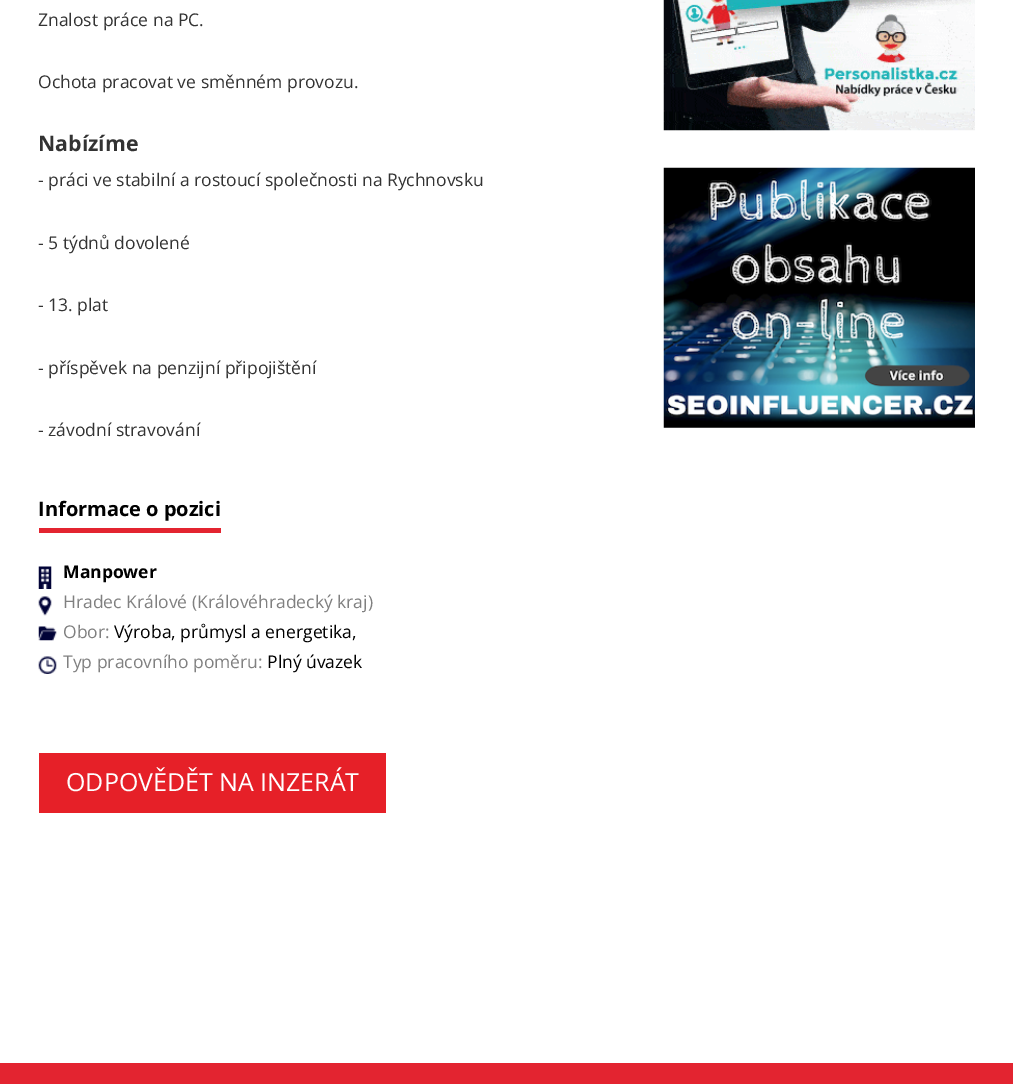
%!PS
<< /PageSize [1013 1084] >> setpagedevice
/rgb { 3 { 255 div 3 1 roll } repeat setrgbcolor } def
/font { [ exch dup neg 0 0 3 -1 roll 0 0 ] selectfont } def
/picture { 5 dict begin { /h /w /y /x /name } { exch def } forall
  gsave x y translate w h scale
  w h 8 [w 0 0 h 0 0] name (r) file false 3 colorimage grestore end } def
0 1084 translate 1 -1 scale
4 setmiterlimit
255 255 255 rgb
0 0 1013 1084 rectfill
227 36 48 rgb
39 528 182 5 rectfill
(img/1.rgb) 38 566 14 23 picture
(img/2.rgb) 38 596 14 20 picture
(img/3.rgb) 38 626 19 15 picture
(img/4.rgb) 38 656 19 18 picture
230 32 40 rgb
39 753 347 60 rectfill
(img/5.rgb) 663 0 312 131 picture
(img/6.rgb) 663 167 312 261 picture
227 36 48 rgb
0 1063 1013 21 rectfill
/OpenSans-Regular 17.5 font
51 51 51 rgb
38 26 moveto (Znalost práce na PC.) show
38 88 moveto (Ochota pracovat ve směnném provozu.) show
/OpenSans-Bold 21.25 font
38 151 moveto (Nabízíme) show
/OpenSans-Regular 17.5 font
[
  [(- práci ve stabilní a rostoucí společnosti na Rychnovsku) 38 186]
  [(- 5 týdnů dovolené) 38 249]
  [(- 13. plat) 38 311]
  [(- příspěvek na penzijní připojištění) 38 374]
  [(- závodní stravování) 38 436]
] { aload pop moveto show } forall
/OpenSans-Bold 20 font
0 0 0 rgb
38 516 moveto (Informace o pozici) show
/OpenSans-Bold 17.5 font
63 578 moveto (Manpower) show
/OpenSans-Regular 17.5 font
128 128 128 rgb
63 608 moveto (Hradec Králové \(Královéhradecký kraj\)) show
63 638 moveto (Obor:) show
0 0 0 rgb
114 638 moveto (Výroba, průmysl a energetika,) show
128 128 128 rgb
63 668 moveto (Typ pracovního poměru:) show
0 0 0 rgb
267 668 moveto (Plný úvazek) show
/OpenSans-Regular 25 font
255 255 255 rgb
66 791 moveto (ODPOVĚDĚT NA INZERÁT) show
showpage
